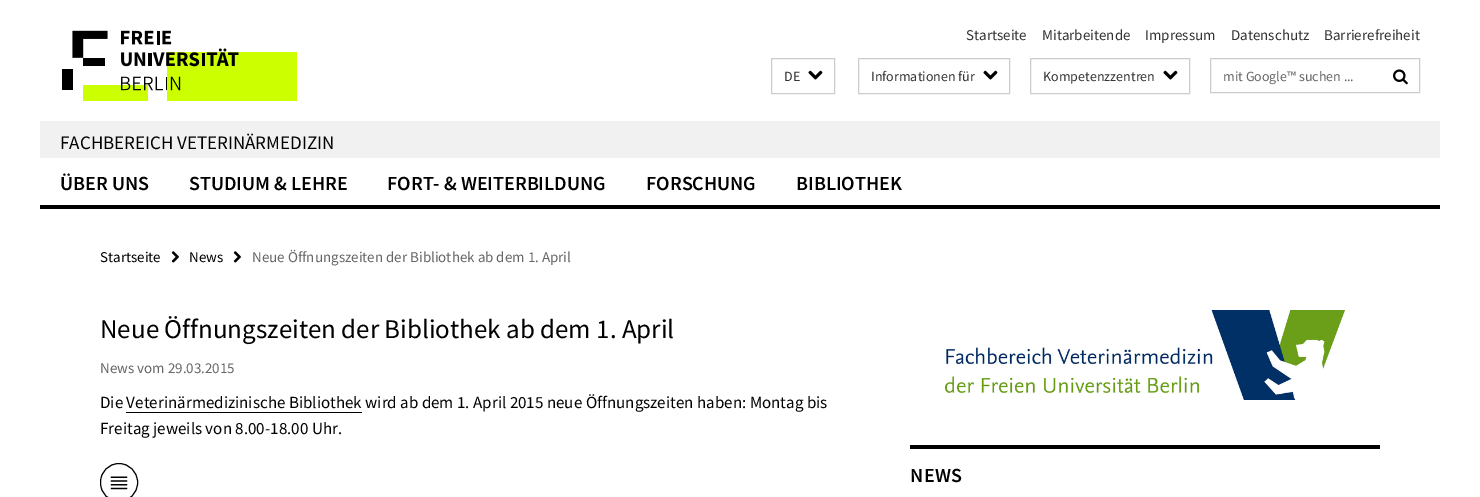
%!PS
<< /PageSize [1480 497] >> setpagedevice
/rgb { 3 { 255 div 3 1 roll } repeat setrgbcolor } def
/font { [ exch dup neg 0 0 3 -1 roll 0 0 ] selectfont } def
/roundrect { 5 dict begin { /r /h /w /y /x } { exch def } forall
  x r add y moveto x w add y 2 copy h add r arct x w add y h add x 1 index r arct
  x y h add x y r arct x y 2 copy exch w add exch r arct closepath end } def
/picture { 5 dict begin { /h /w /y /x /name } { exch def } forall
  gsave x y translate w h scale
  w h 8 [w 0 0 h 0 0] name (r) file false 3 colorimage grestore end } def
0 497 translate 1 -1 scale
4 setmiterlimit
255 255 255 rgb
0 0 1480 497 rectfill
(img/1.rgb) 62 30 235 71 picture
204 204 204 rgb
771.5 58.5 63 35 rectstroke
(img/2.rgb) 808 70 15 10 picture
858.5 58.5 151 35 rectstroke
(img/2.rgb) 983 70 15 10 picture
1030.5 58.5 159 35 rectstroke
(img/2.rgb) 1163 70 15 10 picture
1210.5 58.5 209 34 rectstroke
(img/3.rgb) 1393 69 15 16 picture
241 241 241 rgb
40 121 1400 37 rectfill
0 0 0 rgb
40 205 1400 4 rectfill
(img/4.rgb) 171 251 8 12 picture
(img/4.rgb) 233 251 8 12 picture
126 412 236 1 rectfill
100.5 463.5 37 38 18.5 roundrect stroke
(img/5.rgb) 110 476 18 14 picture
(img/6.rgb) 945 310 400 90 picture
910 445 470 4 rectfill
/SourceSansPro-Regular 15 font
51 51 51 rgb
[
  [(Startseite) 966 40]
  [(Mitarbeitende) 1042 40]
  [(Impressum) 1145 40]
  [(Datenschutz) 1231 40]
  [(Barrierefreiheit) 1324 40]
] { aload pop moveto show } forall
/SourceSansPro-Regular 14 font
[
  [(DE) 784 81]
  [(Informationen für) 871 81]
  [(Kompetenzzentren) 1043 81]
] { aload pop moveto show } forall
102 102 102 rgb
1223 81 moveto (mit Google™ suchen ...) show
/SourceSansPro-Regular 19 font
0 0 0 rgb
60 149 moveto (FACHBEREICH VETERINÄRMEDIZIN) show
/SourceSansPro-SemiBold 20 font
[
  [(ÜBER UNS) 60 190]
  [(STUDIUM & LEHRE) 189 190]
  [(FORT- & WEITERBILDUNG) 387 190]
  [(FORSCHUNG) 646 190]
  [(BIBLIOTHEK) 796 190]
] { aload pop moveto show } forall
/SourceSansPro-Regular 15 font
100 262 moveto (Startseite) show
189 262 moveto (News) show
102 102 102 rgb
252 262 moveto (Neue Öffnungszeiten der Bibliothek ab dem 1. April) show
/SourceSansPro-Regular 27 font
0 0 0 rgb
100 338 moveto (Neue Öffnungszeiten der Bibliothek ab dem 1. April) show
/SourceSansPro-Regular 15 font
102 102 102 rgb
100 373 moveto (News vom 29.03.2015) show
/SourceSansPro-Regular 17 font
0 0 0 rgb
100 408 moveto (Die Veterinärmedizinische Bibliothek wird ab dem 1. April 2015 neue Öffnungszeiten haben: Montag bis) show
100 434 moveto (Freitag jeweils von 8.00-18.00 Uhr.) show
/SourceSansPro-SemiBold 20 font
910 482 moveto 0.5 0 (NEWS) ashow
showpage
